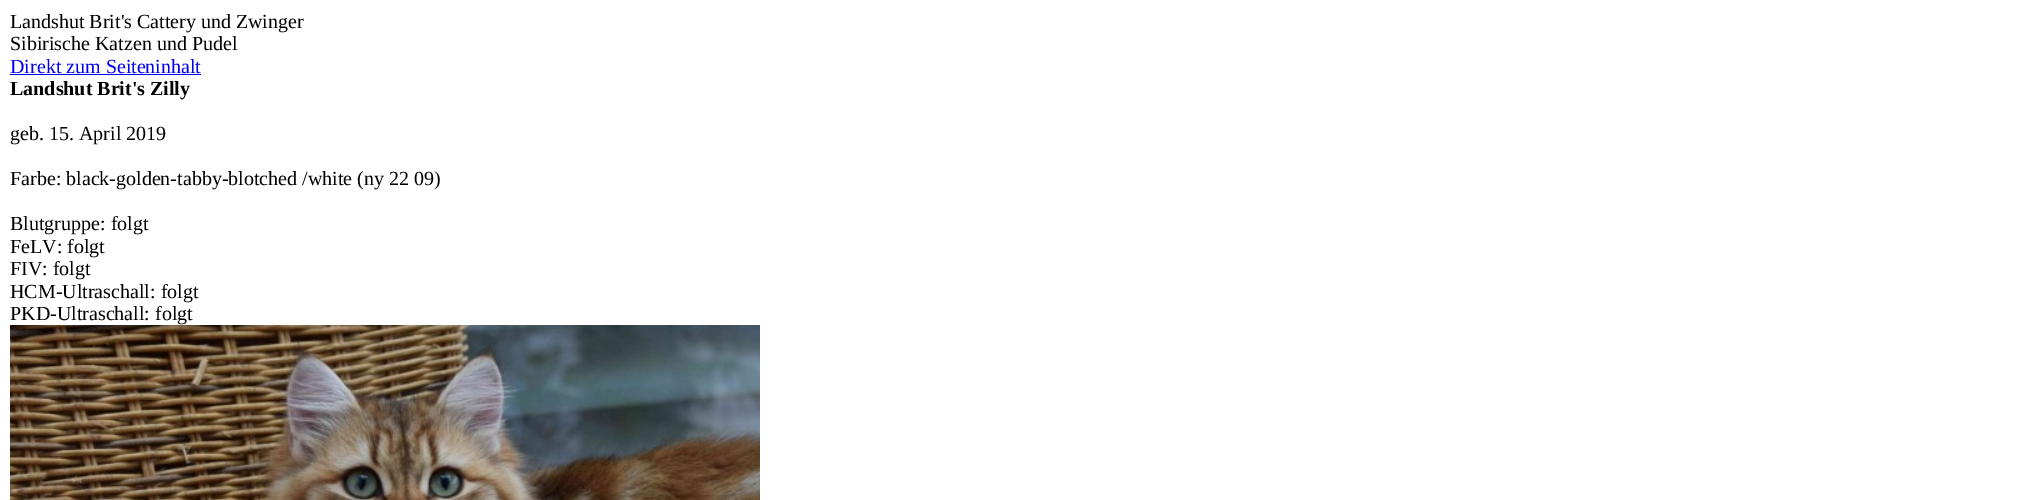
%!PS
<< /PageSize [2043 500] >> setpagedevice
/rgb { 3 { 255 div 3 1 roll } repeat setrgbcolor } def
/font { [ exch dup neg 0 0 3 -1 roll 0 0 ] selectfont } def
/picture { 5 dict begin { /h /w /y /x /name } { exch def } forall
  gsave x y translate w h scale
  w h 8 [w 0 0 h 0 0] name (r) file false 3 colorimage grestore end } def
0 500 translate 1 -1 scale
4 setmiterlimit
255 255 255 rgb
0 0 2043 500 rectfill
0 0 238 rgb
10 74 191 1 rectfill
(img/1.rgb) 10 325 750 175 picture
/LiberationSerif-Regular 20 font
0 0 0 rgb
10 28 moveto (Landshut Brit's Cattery und Zwinger) show
10 50 moveto (Sibirische Katzen und Pudel) show
0 0 238 rgb
10 73 moveto (Direkt zum Seiteninhalt) show
/LiberationSerif-Bold 20 font
0 0 0 rgb
10 95 moveto (Landshut Brit's Zilly) show
/LiberationSerif-Regular 20 font
[
  [(geb. 15. April 2019) 10 140]
  [(Farbe: black-golden-tabby-blotched /white \(ny 22 09\)) 10 185]
  [(Blutgruppe: folgt) 10 230]
  [(FeLV: folgt) 10 253]
  [(FIV: folgt) 10 275]
  [(HCM-Ultraschall: folgt) 10 298]
  [(PKD-Ultraschall: folgt) 10 320]
] { aload pop moveto show } forall
showpage
